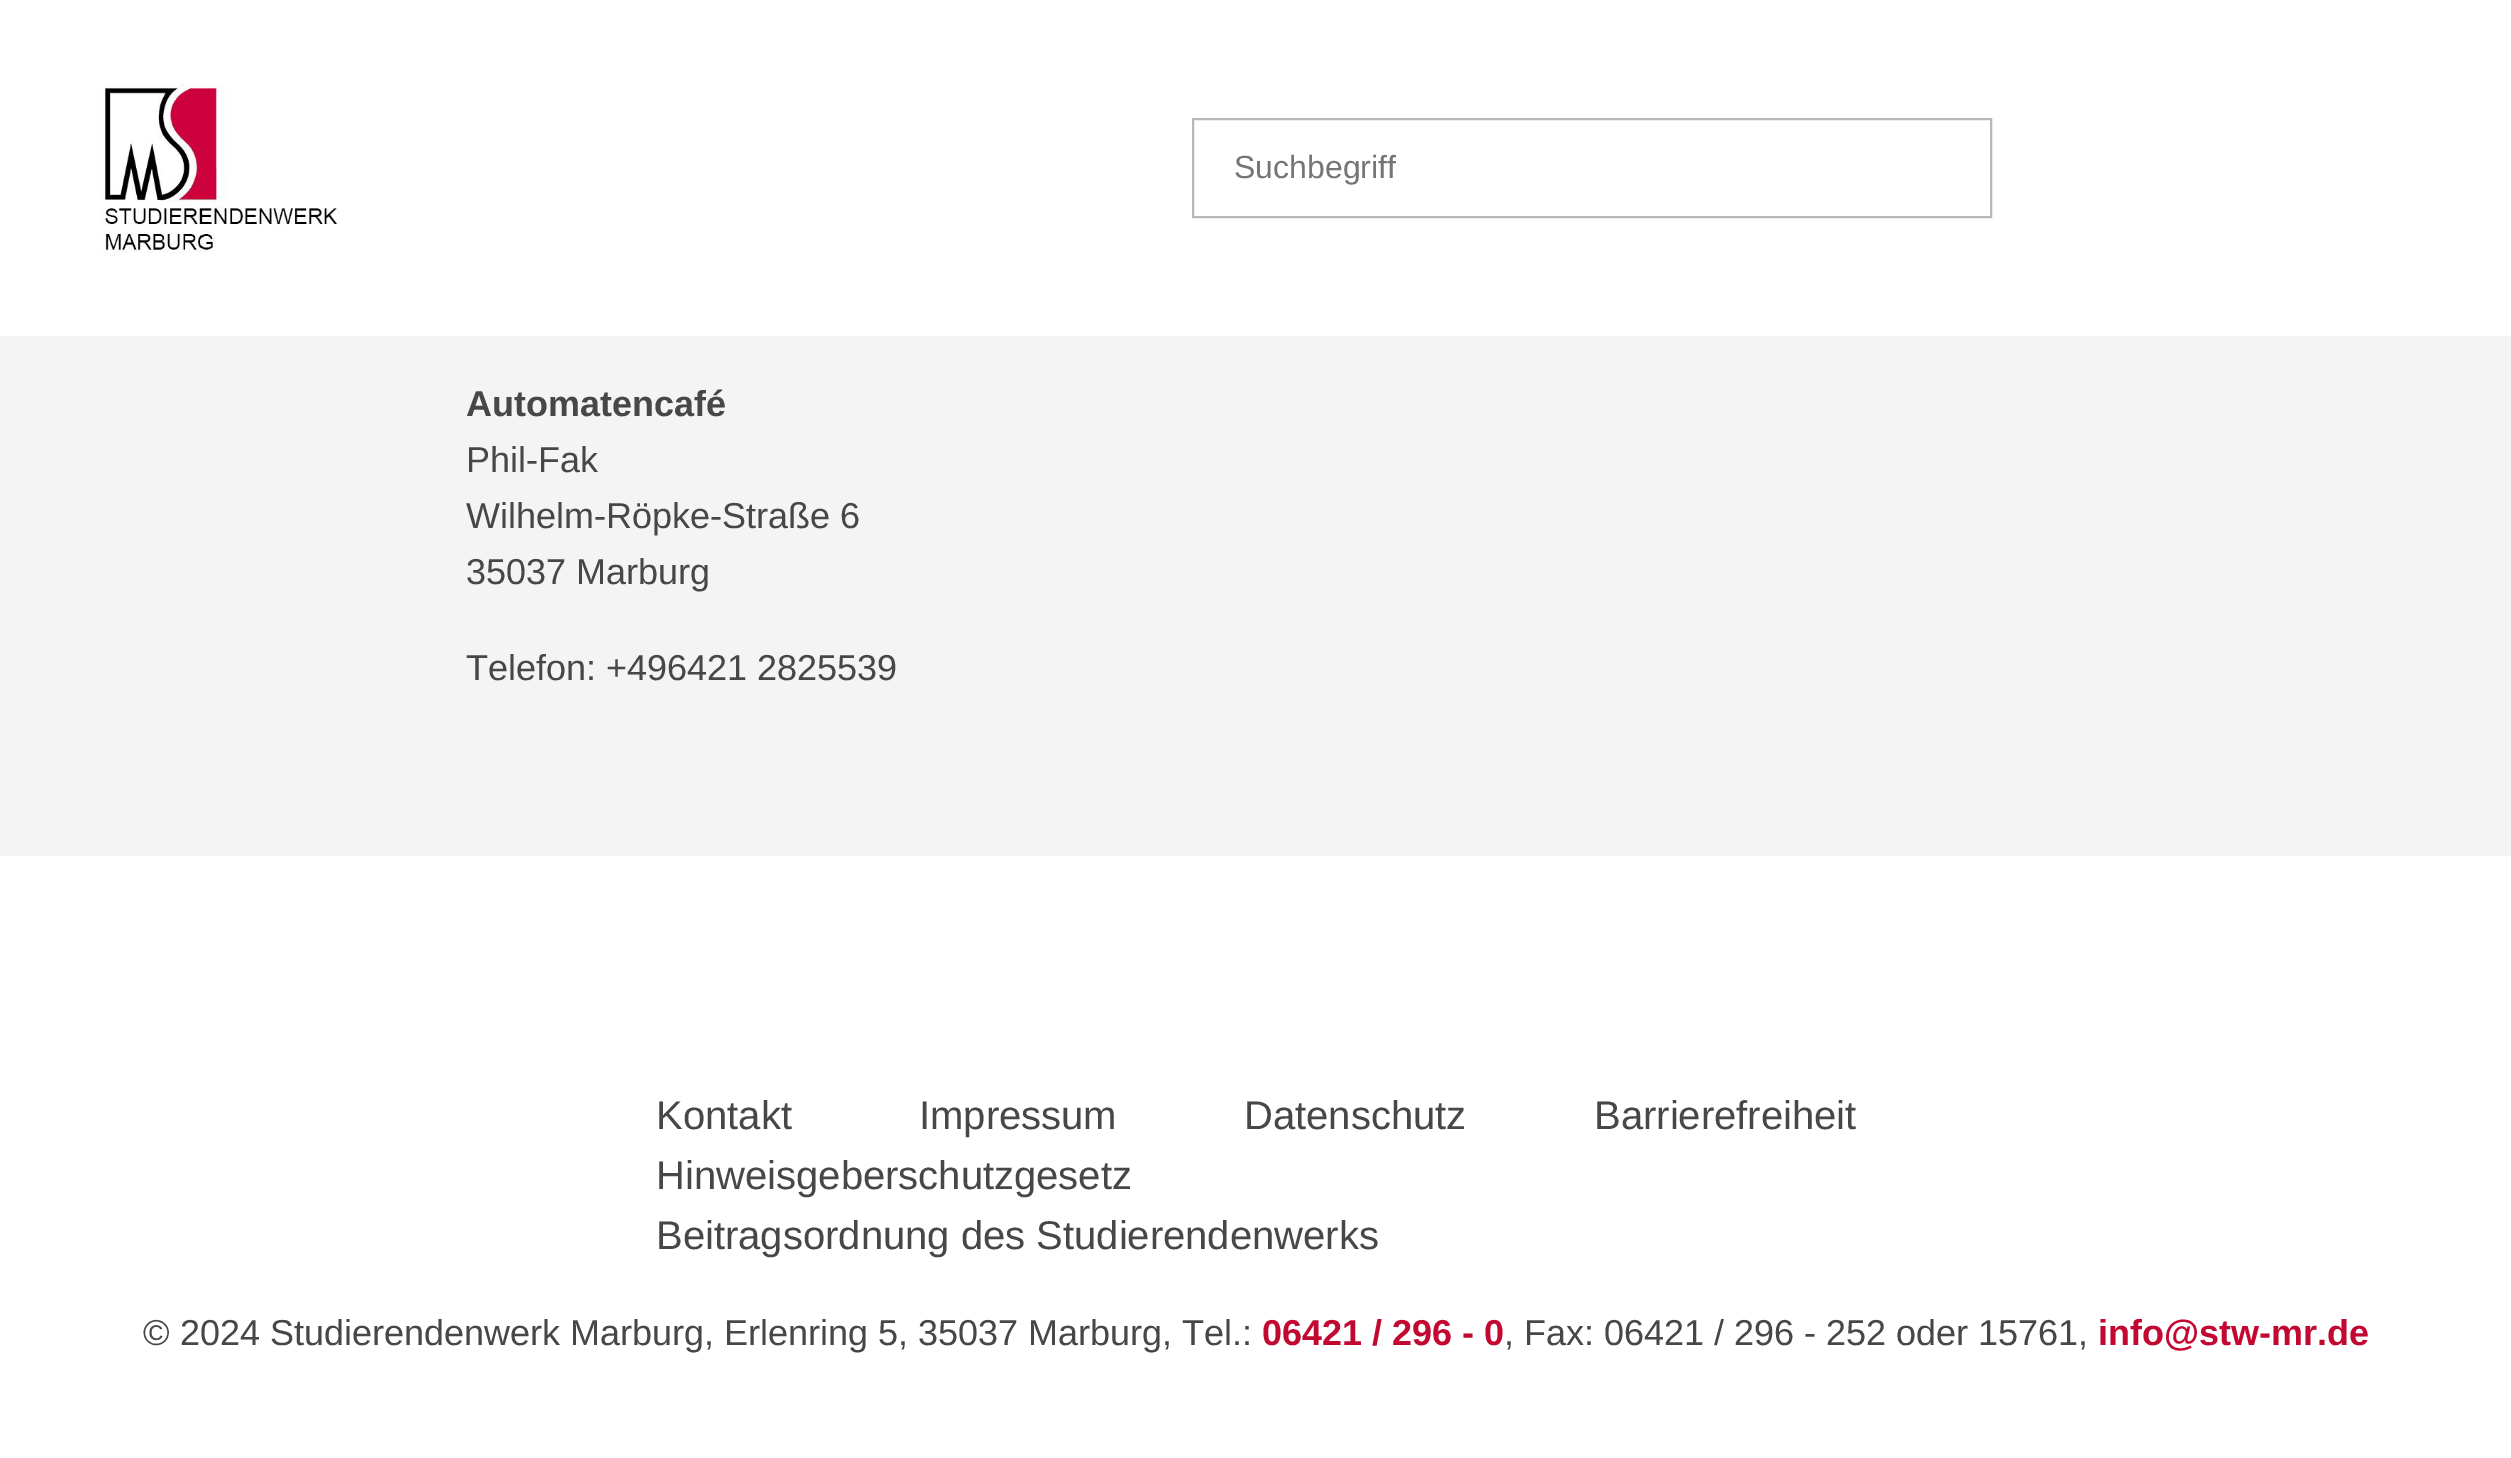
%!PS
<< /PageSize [2511 1458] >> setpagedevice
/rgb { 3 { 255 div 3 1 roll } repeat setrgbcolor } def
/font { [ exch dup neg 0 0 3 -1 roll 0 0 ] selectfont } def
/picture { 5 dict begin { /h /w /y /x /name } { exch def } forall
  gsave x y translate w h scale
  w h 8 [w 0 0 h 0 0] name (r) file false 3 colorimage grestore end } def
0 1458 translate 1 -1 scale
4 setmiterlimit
244 244 244 rgb
0 0 2511 1458 rectfill
255 255 255 rgb
0 0 2511 336 rectfill
(img/1.rgb) 101 83 239 170 picture
184 184 184 rgb
2 setlinewidth
1193 119 798 98 rectstroke
255 255 255 rgb
0 856 2511 602 rectfill
/LiberationSans-Regular 32 font
117 117 117 rgb
1234 178 moveto (Suchbegriff) show
/LiberationSans-Bold 36 font
71 71 71 rgb
466 416 moveto (Automatencafé) show
/LiberationSans-Regular 36 font
[
  [(Phil-Fak) 466 472]
  [(Wilhelm-Röpke-Straße 6) 466 528]
  [(35037 Marburg) 466 584]
  [(Telefon: +496421 2825539) 466 680]
] { aload pop moveto show } forall
/LiberationSans-Regular 40 font
[
  [(Kontakt) 656 1129]
  [(Impressum) 919 1129]
  [(Datenschutz) 1244 1129]
  [(Barrierefreiheit) 1594 1129]
  [(Hinweisgeberschutzgesetz) 656 1189]
  [(Beitragsordnung des Studierendenwerks) 656 1249]
] { aload pop moveto show } forall
/LiberationSans-Regular 36 font
143 1345 moveto (© 2024 Studierendenwerk Marburg, Erlenring 5, 35037 Marburg, Tel.:) show
/LiberationSans-Bold 36 font
194 8 49 rgb
1262 1345 moveto (06421 / 296 - 0) show
/LiberationSans-Regular 36 font
71 71 71 rgb
1504 1345 moveto (, Fax: 06421 / 296 - 252 oder 15761,) show
/LiberationSans-Bold 36 font
194 8 49 rgb
2098 1345 moveto (info@stw-mr.de) show
showpage
